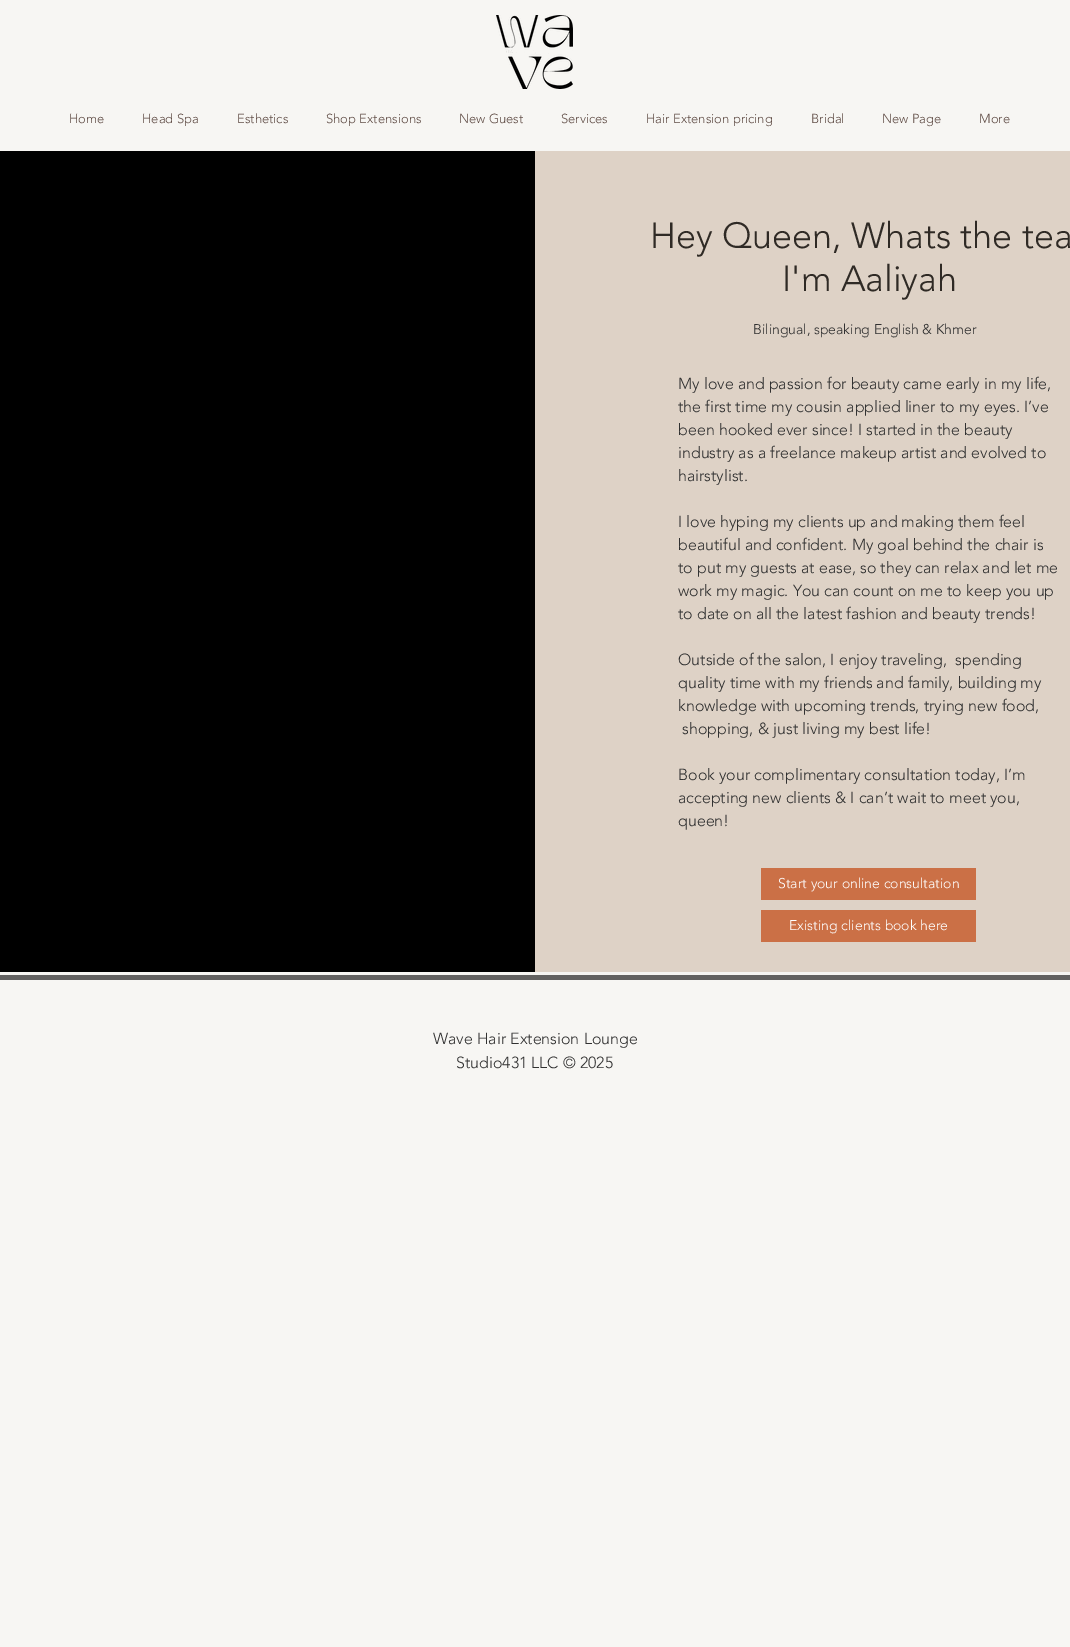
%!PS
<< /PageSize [1070 1647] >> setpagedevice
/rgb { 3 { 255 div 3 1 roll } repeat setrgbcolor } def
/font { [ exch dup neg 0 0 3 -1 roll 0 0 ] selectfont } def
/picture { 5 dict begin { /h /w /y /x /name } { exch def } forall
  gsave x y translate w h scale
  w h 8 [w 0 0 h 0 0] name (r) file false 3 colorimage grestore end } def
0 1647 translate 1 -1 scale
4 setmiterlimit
247 246 243 rgb
0 0 1070 1647 rectfill
(img/1.rgb) 496 15 77 74 picture
[
  [0 151 535 821 0 0 0]
  [535 151 535 821 222 210 198]
  [761 868 215 32 203 112 70]
  [761 910 215 32 203 112 70]
  [0 975 1070 5 99 98 97]
] { aload pop rgb rectfill } forall
/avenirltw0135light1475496-Light 13 font
98 79 72 rgb
[
  [(Home) 69 123]
  [(Head Spa) 142 123]
  [(Esthetics) 237 123]
  [(Shop Extensions) 326 123]
  [(New Guest) 459 123]
  [(Services) 561 123]
  [(Hair Extension pricing) 646 123]
  [(Bridal) 811 123]
  [(New Page) 882 123]
  [(More) 979 123]
] { aload pop moveto show } forall
/avenirltw0135light1475496-Light 36 font
47 42 37 rgb
650 248 moveto (Hey Queen, Whats the tea) show
782 291 moveto (I'm Aaliyah) show
/avenirltw0135light1475496-Light 14 font
49 49 49 rgb
753 334 moveto (Bilingual, speaking English & Khmer) show
/avenirltw0135light1475496-Light 16 font
[
  [(My love and passion for beauty came early in my life,) 678 389]
  [(the first time my cousin applied liner to my eyes. I’ve) 678 412]
  [(been hooked ever since! I started in the beauty) 678 435]
  [(industry as a freelance makeup artist and evolved to) 678 458]
  [(hairstylist.) 678 481]
  [(I love hyping my clients up and making them feel) 678 527]
  [(beautiful and confident. My goal behind the chair is) 678 550]
  [(to put my guests at ease, so they can relax and let me) 678 573]
  [(work my magic. You can count on me to keep you up) 678 596]
  [(to date on all the latest fashion and beauty trends!) 678 619]
  [(Outside of the salon, I enjoy traveling,  spending) 678 665]
  [(quality time with my friends and family, building my) 678 688]
  [(knowledge with upcoming trends, trying new food,) 678 711]
  [(shopping, & just living my best life!) 682 734]
  [(Book your complimentary consultation today, I’m) 678 780]
  [(accepting new clients & I can’t wait to meet you,) 678 803]
  [(queen!) 678 826]
] { aload pop moveto show } forall
/avenirltw0135light1475496-Light 14 font
255 255 255 rgb
778 888 moveto (Start your online consultation) show
789 930 moveto (Existing clients book here) show
/avenirltw0135light1475496-Light 16 font
49 49 49 rgb
433 1044 moveto (Wave Hair Extension Lounge) show
456 1068 moveto (Studio431 LLC © 2025) show
showpage
